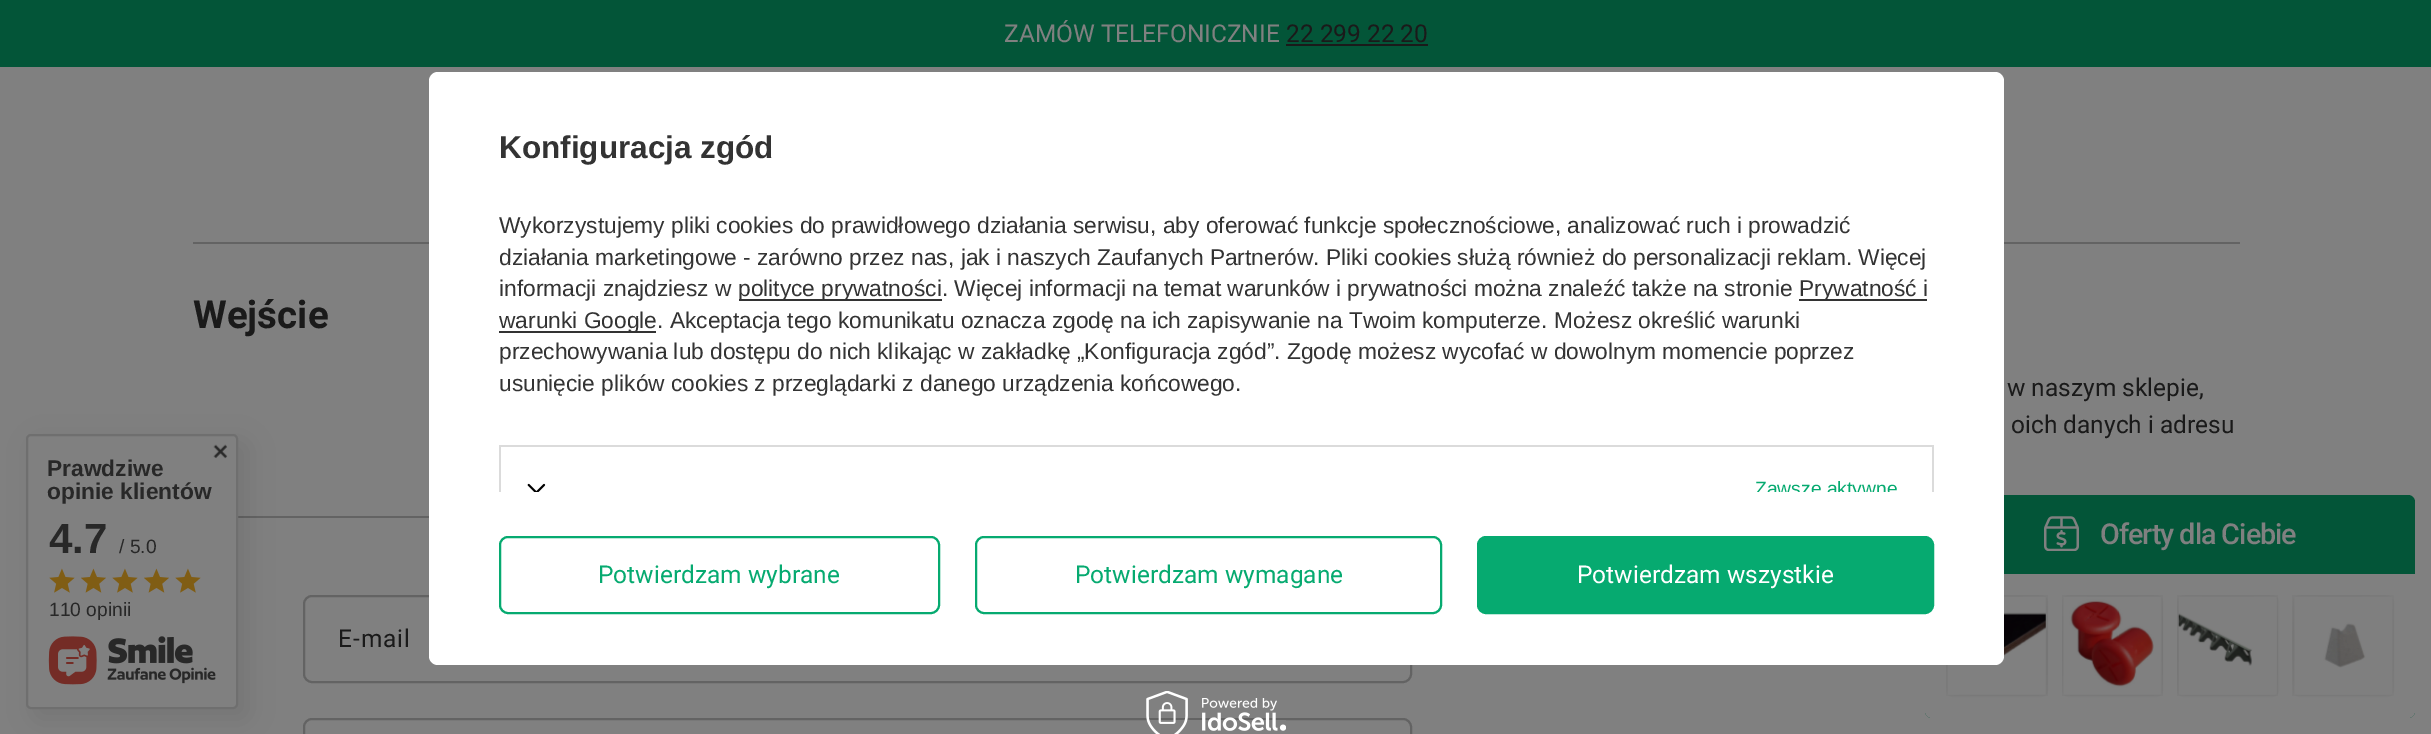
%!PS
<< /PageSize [2431 734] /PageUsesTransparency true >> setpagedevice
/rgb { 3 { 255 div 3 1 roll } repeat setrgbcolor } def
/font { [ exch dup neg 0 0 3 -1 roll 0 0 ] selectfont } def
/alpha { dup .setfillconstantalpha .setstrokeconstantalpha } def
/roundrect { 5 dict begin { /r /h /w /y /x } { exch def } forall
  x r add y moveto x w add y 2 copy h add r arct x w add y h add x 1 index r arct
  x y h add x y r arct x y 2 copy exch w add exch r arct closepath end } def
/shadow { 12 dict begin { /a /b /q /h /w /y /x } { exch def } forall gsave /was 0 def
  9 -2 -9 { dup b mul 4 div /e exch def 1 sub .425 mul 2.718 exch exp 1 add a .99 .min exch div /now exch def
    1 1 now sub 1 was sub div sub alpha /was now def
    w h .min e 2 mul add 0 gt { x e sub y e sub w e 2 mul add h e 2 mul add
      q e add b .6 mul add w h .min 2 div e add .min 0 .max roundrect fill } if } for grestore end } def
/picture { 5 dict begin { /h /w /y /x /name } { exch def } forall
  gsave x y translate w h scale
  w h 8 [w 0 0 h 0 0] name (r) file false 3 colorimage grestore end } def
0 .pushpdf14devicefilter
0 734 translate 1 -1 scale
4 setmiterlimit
128 128 128 rgb
0 0 2431 734 rectfill
[
  [0 0 2431 67 3 85 56]
  [1286 44 142 2 26 26 26]
  [193 242 2047 2 99 99 99]
] { aload pop rgb rectfill } forall
2 setlinewidth
304 596 1107 86 8 roundrect stroke
3 85 56 rgb
1925 495 490 223 7 roundrect fill
128 128 128 rgb
1925 574 moveto 2415 574 lineto 2415 711 lineto 2415 715 2412 718 2408 718 curveto 1932 718 lineto 1928 718 1925 715 1925 711 curveto closepath fill
125 125 125 rgb
1947 596 100 100 6 roundrect stroke
(img/8.rgb) 1946 595 102 101 picture
255 255 255 rgb
429 72 1575 593 9 roundrect fill
[
  [739 299 203 2 51 51 51]
  [1799 299 128 2 51 51 51]
  [499 331 157 2 51 51 51]
  [499 445 1435 2 219 219 219]
  [1932 445 2 47 219 219 219]
  [499 445 2 47 219 219 219]
] { aload pop rgb rectfill } forall
(img/1.rgb) 527 483 19 9 picture
6 170 112 rgb
500 537 439 76 8 roundrect stroke
976 537 465 76 8 roundrect stroke
1478 537 455 76 8 roundrect gsave fill grestore
stroke
99 99 99 rgb
304 719 1107 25 8 roundrect stroke
(img/2.rgb) 1146 691 140 43 picture
238 516 191 2 rectfill
0 0 0 rgb
35 443 212 275 5 13 0.1 shadow
128 128 128 rgb
27 435 210 273 4 roundrect gsave fill grestore
111 111 111 rgb
stroke
(img/3.rgb) 213 444 15 15 picture
(img/4.rgb) 49 568 26 25 picture
(img/5.rgb) 81 568 25 25 picture
(img/4.rgb) 112 568 26 25 picture
(img/5.rgb) 144 568 25 25 picture
(img/4.rgb) 175 568 26 25 picture
(img/6.rgb) 48 636 168 49 picture
(img/7.rgb) 2044 516 35 35 picture
125 125 125 rgb
2063 596 99 100 6 roundrect stroke
(img/9.rgb) 2062 595 101 101 picture
2178 596 100 100 6 roundrect stroke
(img/10.rgb) 2177 595 101 101 picture
2294 596 99 100 6 roundrect stroke
(img/11.rgb) 2292 595 102 101 picture
/Roboto-Regular 24.5 font
128 128 128 rgb
1004 42 moveto (ZAMÓW TELEFONICZNIE) show
26 26 26 rgb
1286 42 moveto (22 299 22 20) show
/LiberationSans-Bold 31.5 font
51 51 51 rgb
499 158 moveto (Konfiguracja zgód) show
/LiberationSans-Regular 22.75 font
[
  [(Wykorzystujemy pliki cookies do prawidłowego działania serwisu, aby oferować funkcje społecznościowe, analizować ruch i prowadzić) 499 233]
  [(działania marketingowe - zarówno przez nas, jak i naszych Zaufanych Partnerów. Pliki cookies służą również do personalizacji reklam. Więcej) 499 265]
  [(informacji znajdziesz w) 499 296]
  [(polityce prywatności. Więcej informacji na temat warunków i prywatności można znaleźć także na stronie) 738 296]
  [(Prywatność i) 1799 296]
  [(warunki Google. Akceptacja tego komunikatu oznacza zgodę na ich zapisywanie na Twoim komputerze. Możesz określić warunki) 499 328]
  [(przechowywania lub dostępu do nich klikając w zakładkę „Konfiguracja zgód”. Zgodę możesz wycofać w dowolnym momencie poprzez) 499 359]
  [(usunięcie plików cookies z przeglądarki z danego urządzenia końcowego.) 499 391]
] { aload pop moveto show } forall
gsave
481 124 1470 368 rectclip
/LiberationSans-Regular 19.25 font
6 170 112 rgb
1755 495 moveto (Zawsze aktywne) show
grestore
/Roboto-Regular 24.5 font
6 170 112 rgb
598 583 moveto (Potwierdzam wybrane) show
1075 583 moveto (Potwierdzam wymagane) show
255 255 255 rgb
1577 583 moveto (Potwierdzam wszystkie) show
/LiberationSans-Bold 22.75 font
40 40 40 rgb
47 476 moveto (Prawdziwe) show
47 499 moveto (opinie klientów) show
/LiberationSans-Bold 42 font
49 553 moveto (4.7) show
/LiberationSans-Regular 19.25 font
119 553 moveto (/ 5.0) show
49 616 moveto (110 opinii) show
/Roboto-Bold 38.5 font
26 26 26 rgb
193 328 moveto (Wejście) show
/Roboto-Regular 24.5 font
338 647 moveto 1 0 (E-mail) ashow
2007 396 moveto (w naszym sklepie,) show
2011 433 moveto (oich danych i adresu) show
/Roboto-Medium 28.75 font
128 128 128 rgb
2100 544 moveto -1 0 (Oferty dla Ciebie) ashow
.poppdf14devicefilter showpage
